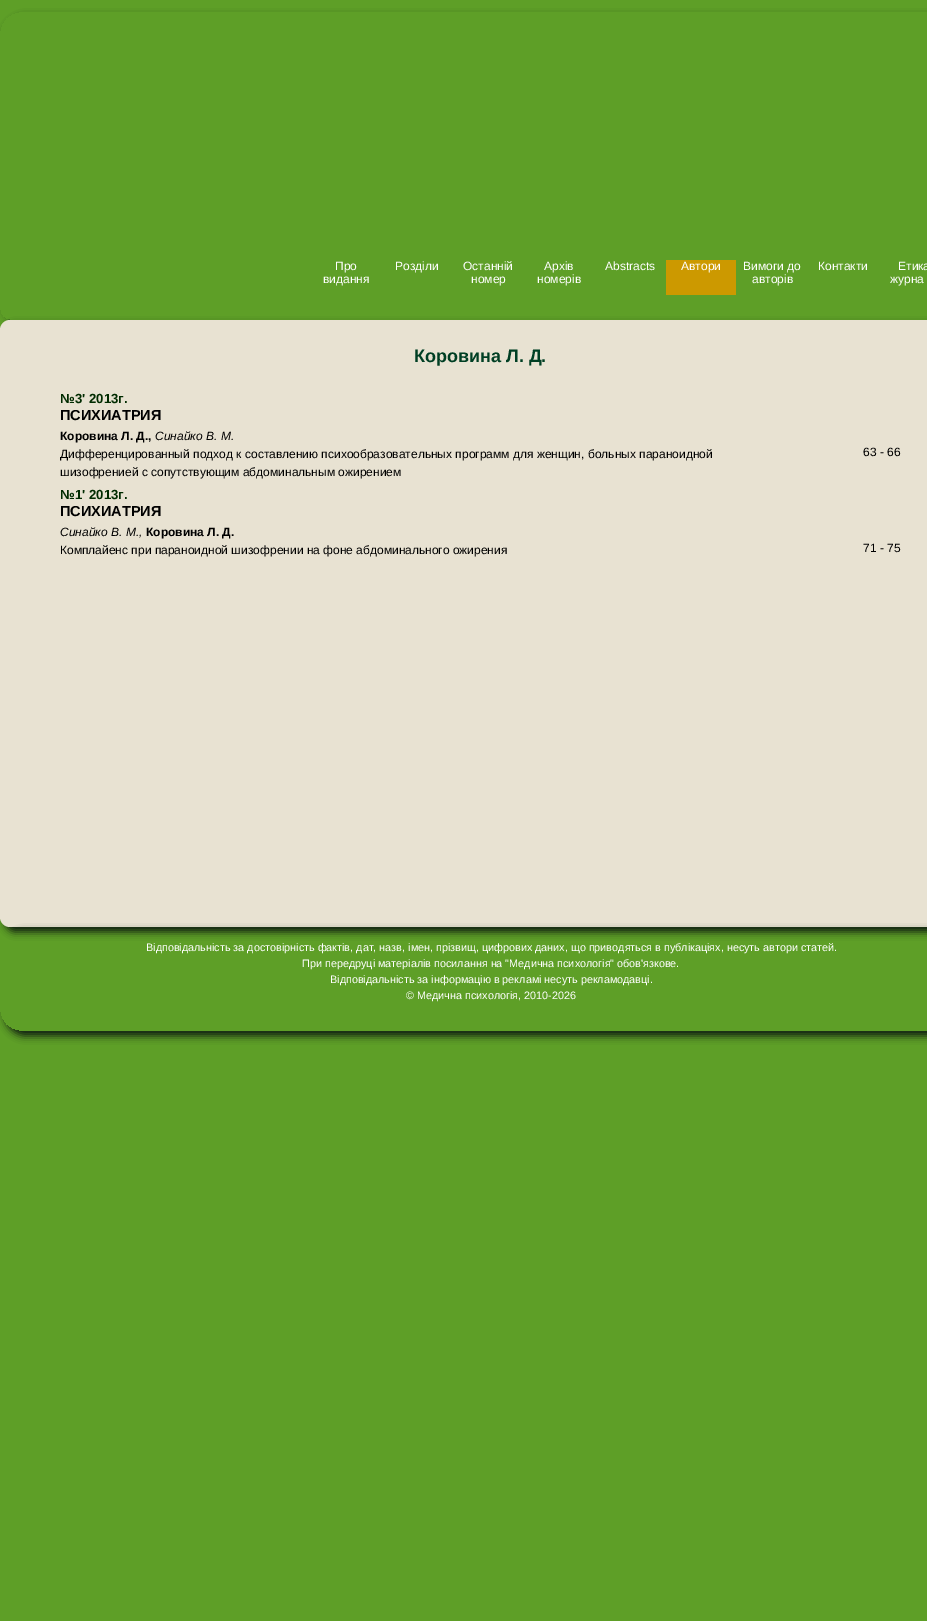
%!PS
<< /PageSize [927 1621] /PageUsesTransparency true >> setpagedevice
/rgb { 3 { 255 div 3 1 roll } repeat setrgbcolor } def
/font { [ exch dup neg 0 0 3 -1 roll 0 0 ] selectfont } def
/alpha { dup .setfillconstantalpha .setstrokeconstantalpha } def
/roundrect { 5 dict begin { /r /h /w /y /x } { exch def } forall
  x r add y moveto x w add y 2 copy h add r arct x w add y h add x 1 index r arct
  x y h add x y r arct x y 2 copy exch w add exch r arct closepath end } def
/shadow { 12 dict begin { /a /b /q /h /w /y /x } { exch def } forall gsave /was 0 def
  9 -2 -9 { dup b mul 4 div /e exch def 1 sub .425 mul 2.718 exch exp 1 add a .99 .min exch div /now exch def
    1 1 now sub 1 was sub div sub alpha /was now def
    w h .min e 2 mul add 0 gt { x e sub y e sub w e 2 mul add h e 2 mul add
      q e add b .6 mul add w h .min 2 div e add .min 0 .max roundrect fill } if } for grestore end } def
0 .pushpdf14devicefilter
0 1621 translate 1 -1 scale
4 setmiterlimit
94 159 39 rgb
0 0 927 1621 rectfill
gsave
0 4 moveto 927 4 lineto 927 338 lineto 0 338 lineto closepath 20 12 moveto 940 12 lineto 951 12 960 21 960 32 curveto 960 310 lineto 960 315.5 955.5 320 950 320 curveto 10 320 lineto 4.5 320 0 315.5 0 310 curveto 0 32 lineto 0 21 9 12 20 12 curveto closepath eoclip newpath
14 29 16 rgb
5 17 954 308 20 4 1 shadow
grestore
204 153 0 rgb
666 260 70 35 rectfill
14 29 16 rgb
5 325 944 607 10 4 1 shadow
232 226 210 rgb
0 320 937 607 10 roundrect fill
gsave
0 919 moveto 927 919 lineto 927 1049 lineto 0 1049 lineto closepath 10 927 moveto 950 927 lineto 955.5 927 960 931.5 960 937 curveto 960 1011 lineto 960 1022 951 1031 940 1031 curveto 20 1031 lineto 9 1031 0 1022 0 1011 curveto 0 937 lineto 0 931.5 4.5 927 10 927 curveto closepath eoclip newpath
14 29 16 rgb
5 932 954 104 20 4 1 shadow
grestore
/LiberationSans-Regular 12 font
255 255 255 rgb
[
  [(Про) 335 270]
  [(видання) 323 283]
  [(Розділи) 395 270]
  [(Останній) 463 270]
  [(номер) 471 283]
  [(Архів) 544 270]
  [(номерів) 537 283]
  [(Abstracts) 605 270]
  [(Автори) 681 270]
  [(Вимоги до) 743 270]
  [(авторів) 752 283]
  [(Контакти) 818 270]
  [(Етика) 898 270]
  [(журна) 890 283]
] { aload pop moveto show } forall
/LiberationSans-Bold 18 font
0 63 36 rgb
414 362 moveto (Коровина Л. Д.) show
/LiberationSans-Bold 13.25 font
0 43 0 rgb
60 403 moveto (№3' 2013г.) show
/LiberationSans-Bold 14.5 font
0 0 0 rgb
60 420 moveto (ПСИХИАТРИЯ) show
/LiberationSans-Bold 12 font
60 440 moveto (Коровина Л. Д.,) show
/LiberationSans-Italic 12 font
155 440 moveto (Синайко В. М.) show
/LiberationSans-Regular 12 font
[
  [(Дифференцированный подход к составлению психообразовательных программ для женщин, больных параноидной) 60 458]
  [(шизофренией с сопутствующим абдоминальным ожирением) 60 476]
  [(63 - 66) 863 456]
] { aload pop moveto show } forall
/LiberationSans-Bold 13.25 font
0 43 0 rgb
60 499 moveto (№1' 2013г.) show
/LiberationSans-Bold 14.5 font
0 0 0 rgb
60 516 moveto (ПСИХИАТРИЯ) show
/LiberationSans-Italic 12 font
60 536 moveto (Синайко В. М.,) show
/LiberationSans-Bold 12 font
146 536 moveto (Коровина Л. Д.) show
/LiberationSans-Regular 12 font
60 554 moveto (Комплайенс при параноидной шизофрении на фоне абдоминального ожирения) show
863 552 moveto (71 - 75) show
/LiberationSans-Regular 10.8 font
255 255 255 rgb
[
  [(Відповідальність за достовірність фактів, дат, назв, імен, прізвищ, цифрових даних, що приводяться в публікаціях, несуть автори статей.) 146 951]
  [(При передруці матеріалів посилання на "Медична психологія" обов'язкове.) 302 967]
  [(Відповідальність за інформацію в рекламі несуть рекламодавці.) 330 983]
  [(© Медична психологія, 2010-2026) 406 999]
] { aload pop moveto show } forall
.poppdf14devicefilter showpage
